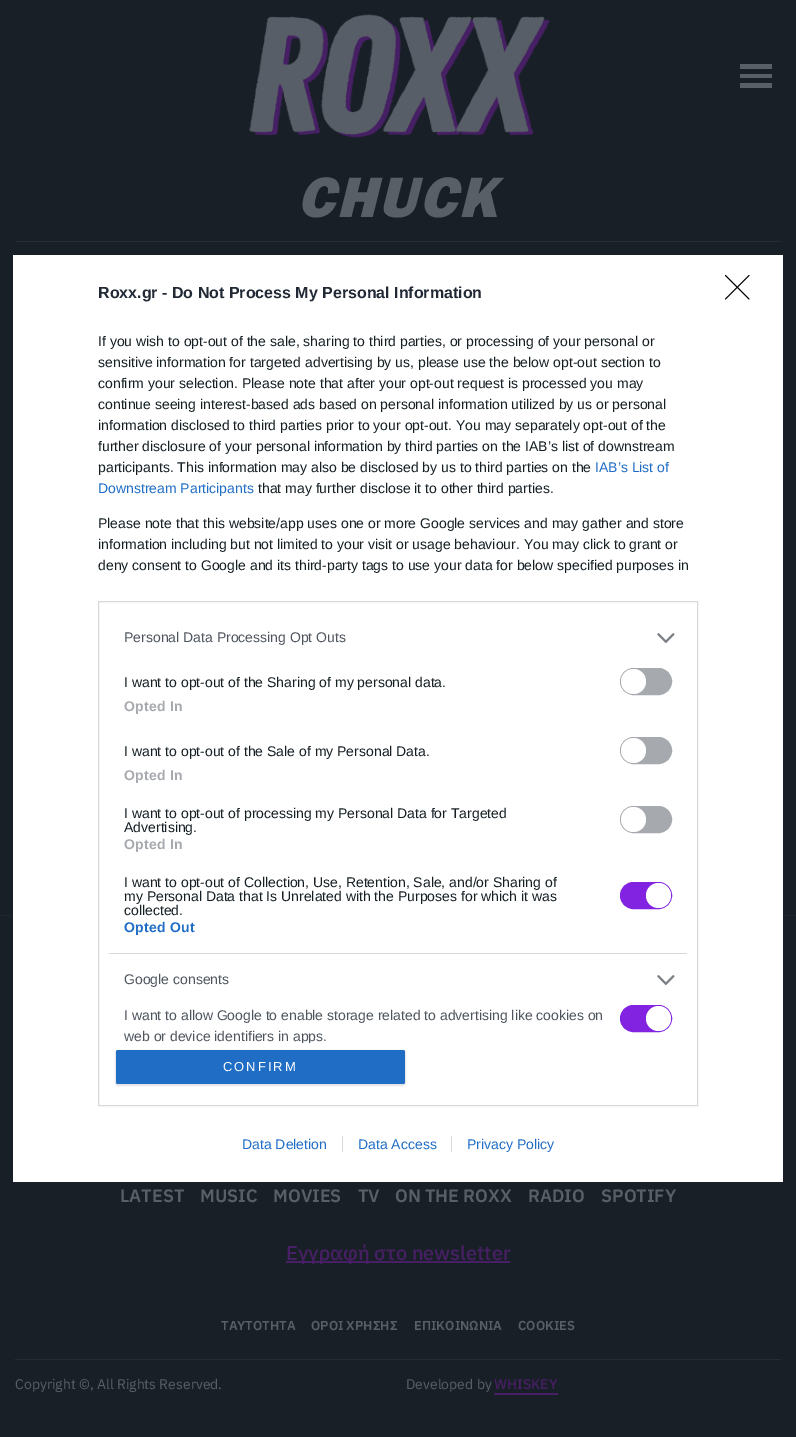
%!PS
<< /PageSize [796 1437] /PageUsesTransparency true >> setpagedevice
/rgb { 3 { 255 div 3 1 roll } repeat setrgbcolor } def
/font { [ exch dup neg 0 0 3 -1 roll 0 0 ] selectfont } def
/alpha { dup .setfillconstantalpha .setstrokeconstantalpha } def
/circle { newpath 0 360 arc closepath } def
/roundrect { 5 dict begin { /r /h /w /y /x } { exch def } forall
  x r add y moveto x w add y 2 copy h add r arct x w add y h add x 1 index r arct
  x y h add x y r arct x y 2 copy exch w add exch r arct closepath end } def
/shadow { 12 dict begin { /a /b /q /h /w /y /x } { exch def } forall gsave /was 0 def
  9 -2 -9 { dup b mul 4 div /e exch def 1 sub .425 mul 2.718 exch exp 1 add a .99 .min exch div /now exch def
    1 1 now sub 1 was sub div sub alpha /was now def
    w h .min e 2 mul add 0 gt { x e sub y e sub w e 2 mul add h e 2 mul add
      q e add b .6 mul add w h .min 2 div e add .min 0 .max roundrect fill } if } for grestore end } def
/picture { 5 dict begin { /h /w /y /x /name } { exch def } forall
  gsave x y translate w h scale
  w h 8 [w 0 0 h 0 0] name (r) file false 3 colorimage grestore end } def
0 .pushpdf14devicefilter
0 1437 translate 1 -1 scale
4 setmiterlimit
25 31 39 rgb
0 0 796 1437 rectfill
(img/1.rgb) 249 14 301 124 picture
[
  [740 64 32 5 89 95 103]
  [740 74 32 4 89 95 103]
  [740 83 32 5 89 95 103]
  [15 241 766 1 38 44 52]
  [0 915 796 1 31 37 46]
  [286 1261 224 2 71 31 100]
  [15 1359 766 1 38 44 52]
  [494 1393 64 2 71 31 100]
  [13 255 770 927 255 255 255]
] { aload pop rgb rectfill } forall
216 216 216 rgb
98.5 601.5 599 504 rectstroke
109 953 578 1 rectfill
(img/2.rgb) 657 633 18 10 picture
166 169 174 rgb
620.5 668.5 51 26 13 roundrect gsave fill grestore
stroke
255 255 255 rgb
633.5 681.5 12.5 circle fill
166 169 174 rgb
620.5 737.5 51 26 13 roundrect gsave fill grestore
stroke
255 255 255 rgb
633.5 750.5 12.5 circle fill
166 169 174 rgb
620.5 806.5 51 26 13 roundrect gsave fill grestore
stroke
255 255 255 rgb
633.5 819.5 12.5 circle fill
130 35 226 rgb
620.5 882.5 51 26 13 roundrect gsave fill grestore
stroke
255 255 255 rgb
658.5 895.5 12.5 circle fill
(img/2.rgb) 657 975 18 10 picture
130 35 226 rgb
620.5 1005.5 51 26 13 roundrect gsave fill grestore
stroke
255 255 255 rgb
658.5 1018.5 12.5 circle fill
0 0 0 rgb
115 1050 291 36 3 0.5 0.1 shadow
32 109 197 rgb
116 1050 289 34 2 roundrect fill
0 0 0 rgb
1 setlinecap
1 setlinejoin
725.5 275.5 moveto 749 299 lineto 749 275.5 moveto 725.5 299 lineto stroke
216 216 216 rgb
342 1136 1 16 rectfill
451 1136 1 16 rectfill
/FranklinGothic-BlackItalic 59 font
89 95 103 rgb
297 217 moveto 2 0 (CHUCK) ashow
/IBMPlexSans-SemiBold 18 font
[
  [(LATEST) 120 1202]
  [(MUSIC) 200 1202]
  [(MOVIES) 273 1202]
  [(TV) 358 1202]
  [(ON THE ROXX) 395 1202]
  [(RADIO) 528 1202]
  [(SPOTIFY) 601 1202]
] { aload pop moveto show } forall
/IBMPlexSans-Medium 20 font
71 31 100 rgb
286 1260 moveto (Εγγραφή στο newsletter) show
/IBMPlexSans-SemiBold 13 font
89 95 103 rgb
[
  [(ΤΑΥΤΟΤΗΤΑ) 221 1330]
  [(ΟΡΟΙ ΧΡΗΣΗΣ) 311 1330]
  [(ΕΠΙΚΟΙΝΩΝΙΑ) 414 1330]
  [(COOKIES) 518 1330]
] { aload pop moveto show } forall
/IBMPlexSans-Regular 14 font
15 1389 moveto (Copyright ©, All Rights Reserved.) show
406 1389 moveto (Developed by) show
/IBMPlexSans-Medium 14 font
71 31 100 rgb
494 1389 moveto (WHISKEY) show
/LiberationSans-Bold 16 font
33 41 52 rgb
98 298 moveto (Roxx.gr - Do Not Process My Personal Information) show
/LiberationSans-Regular 14 font
20 30 35 rgb
[
  [(If you wish to opt-out of the sale, sharing to third parties, or processing of your personal or) 98 346]
  [(sensitive information for targeted advertising by us, please use the below opt-out section to) 98 367]
  [(confirm your selection. Please note that after your opt-out request is processed you may) 98 388]
  [(continue seeing interest-based ads based on personal information utilized by us or personal) 98 409]
  [(information disclosed to third parties prior to your opt-out. You may separately opt-out of the) 98 430]
  [(further disclosure of your personal information by third parties on the IAB’s list of downstream) 98 451]
  [(participants. This information may also be disclosed by us to third parties on the) 98 472]
] { aload pop moveto show } forall
32 109 197 rgb
595 472 moveto (IAB’s List of) show
98 493 moveto (Downstream Participants) show
20 30 35 rgb
[
  [(that may further disclose it to other third parties.) 258 493]
  [(Please note that this website/app uses one or more Google services and may gather and store) 98 528]
  [(information including but not limited to your visit or usage behaviour. You may click to grant or) 98 549]
  [(deny consent to Google and its third-party tags to use your data for below specified purposes in) 98 570]
] { aload pop moveto show } forall
77 84 93 rgb
124 642 moveto (Personal Data Processing Opt Outs) show
20 30 35 rgb
124 687 moveto (I want to opt-out of the Sharing of my personal data.) show
/LiberationSans-Bold 14 font
166 169 174 rgb
124 711 moveto 0.25 0 (Opted In) ashow
/LiberationSans-Regular 14 font
20 30 35 rgb
124 756 moveto (I want to opt-out of the Sale of my Personal Data.) show
/LiberationSans-Bold 14 font
166 169 174 rgb
124 780 moveto 0.25 0 (Opted In) ashow
/LiberationSans-Regular 14 font
20 30 35 rgb
124 818 moveto (I want to opt-out of processing my Personal Data for Targeted) show
124 832 moveto (Advertising.) show
/LiberationSans-Bold 14 font
166 169 174 rgb
124 849 moveto 0.25 0 (Opted In) ashow
/LiberationSans-Regular 14 font
20 30 35 rgb
[
  [(I want to opt-out of Collection, Use, Retention, Sale, and/or Sharing of) 124 887]
  [(my Personal Data that Is Unrelated with the Purposes for which it was) 124 901]
  [(collected.) 124 915]
] { aload pop moveto show } forall
/LiberationSans-Bold 14 font
32 109 197 rgb
124 932 moveto 0.25 0 (Opted Out) ashow
/LiberationSans-Regular 14 font
77 84 93 rgb
124 984 moveto (Google consents) show
124 1020 moveto (I want to allow Google to enable storage related to advertising like cookies on) show
gsave
109 954 578 89 rectclip
124 1041 moveto (web or device identifiers in apps.) show
grestore
/LiberationSans-Regular 13 font
255 255 255 rgb
223 1071 moveto 2 0 (CONFIRM) ashow
/LiberationSans-Regular 14 font
32 109 197 rgb
[
  [(Data Deletion) 242 1149]
  [(Data Access) 358 1149]
  [(Privacy Policy) 467 1149]
] { aload pop moveto show } forall
.poppdf14devicefilter showpage
